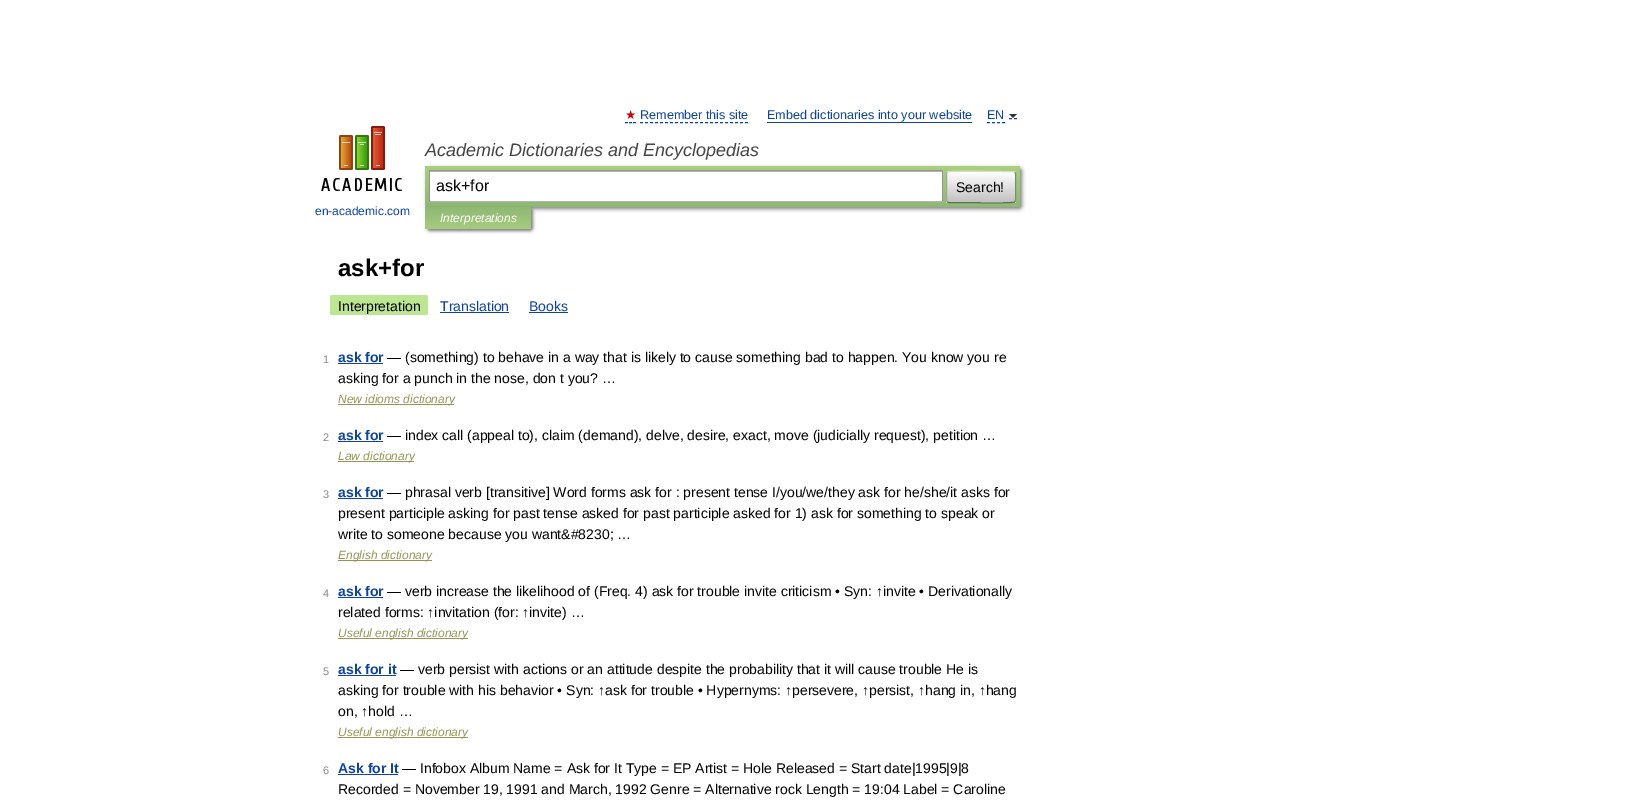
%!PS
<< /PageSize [1649 806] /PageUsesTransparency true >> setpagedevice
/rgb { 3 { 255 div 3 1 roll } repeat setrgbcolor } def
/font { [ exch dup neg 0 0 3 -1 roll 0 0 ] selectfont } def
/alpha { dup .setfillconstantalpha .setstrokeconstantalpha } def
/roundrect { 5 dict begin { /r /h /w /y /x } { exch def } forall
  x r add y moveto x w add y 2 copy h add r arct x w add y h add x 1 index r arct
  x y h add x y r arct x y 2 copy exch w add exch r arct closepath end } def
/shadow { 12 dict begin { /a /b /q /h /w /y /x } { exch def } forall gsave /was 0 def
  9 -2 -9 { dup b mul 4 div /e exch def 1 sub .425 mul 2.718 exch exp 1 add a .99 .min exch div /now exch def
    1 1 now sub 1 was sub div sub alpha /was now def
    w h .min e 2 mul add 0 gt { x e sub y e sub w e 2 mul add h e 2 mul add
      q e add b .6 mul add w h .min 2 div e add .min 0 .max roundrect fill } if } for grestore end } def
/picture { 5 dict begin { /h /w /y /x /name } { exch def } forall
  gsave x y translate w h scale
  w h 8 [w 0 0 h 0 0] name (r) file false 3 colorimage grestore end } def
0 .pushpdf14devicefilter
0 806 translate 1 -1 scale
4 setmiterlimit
255 255 255 rgb
0 0 1649 806 rectfill
0 68 170 rgb
625 122.5 moveto 628 122.5 lineto 629 122.5 moveto 632 122.5 lineto 633 122.5 moveto 636 122.5 lineto stroke
[3 2] 0 setdash
640 122.5 moveto 748 122.5 lineto stroke
13 68 160 rgb
767 122 205 1 rectfill
0 68 170 rgb
987 122.5 moveto 1005 122.5 lineto stroke
[] 0 setdash
1009 118.5 moveto 1012 118.5 lineto 1014 118.5 moveto 1017 118.5 lineto stroke
51 51 51 rgb
1009 114 moveto 1017 114 lineto 1013 118 lineto closepath fill
0 0 0 rgb
427 168 595 41 3 2 0.5 shadow
gsave 425 166 moveto 1017 166 lineto 1018.5 166 1020 167.5 1020 169 curveto 1020 204 lineto 1020 205.5 1018.5 207 1017 207 curveto 425 207 lineto closepath clip newpath
<< /ShadingType 2 /ColorSpace /DeviceRGB /Coords [723 166 723 207] /Extend [true true] /Function << /FunctionType 2 /Domain [0 1] /C0 [0.671 0.812 0.494] /C1 [0.557 0.722 0.455] /N 1 >> >> shfill grestore
[
  [430 172 512 29 255 255 255]
  [430 171 512 1 179 179 179]
  [429 170 514 1 148 148 148]
  [942 170 1 32 148 148 148]
  [429 201 514 1 180 180 180]
  [429 170 1 32 148 148 148]
] { aload pop rgb rectfill } forall
gsave
946 171 70 32 3 roundrect clip newpath
gsave 946 171 moveto 1016 171 lineto 1016 172 lineto 946 172 lineto closepath clip newpath
<< /ShadingType 2 /ColorSpace /DeviceRGB /Coords [981 142 981 172] /Extend [true true] /Function << /FunctionType 2 /Domain [0 1] /C0 [1 1 1] /C1 [0.757 0.757 0.757] /N 1 >> >> shfill grestore
gsave 946 172 moveto 1016 172 lineto 1016 202 lineto 946 202 lineto closepath clip newpath
<< /ShadingType 2 /ColorSpace /DeviceRGB /Coords [981 172 981 202] /Extend [true true] /Function << /FunctionType 2 /Domain [0 1] /C0 [1 1 1] /C1 [0.757 0.757 0.757] /N 1 >> >> shfill grestore
gsave 946 202 moveto 1016 202 lineto 1016 203 lineto 946 203 lineto closepath clip newpath
<< /ShadingType 2 /ColorSpace /DeviceRGB /Coords [981 202 981 232] /Extend [true true] /Function << /FunctionType 2 /Domain [0 1] /C0 [1 1 1] /C1 [0.757 0.757 0.757] /N 1 >> >> shfill grestore
grestore
209 228 188 rgb
947 172 moveto 947.5 172 lineto 949.5 170.5 996 171.5 1002.5 171.5 curveto 1013 171.5 lineto 1015 172 lineto stroke
122 142 105 rgb
1015 172 moveto 1015 172.5 1015.5 173.5 1015.5 174 curveto 1015.5 200 lineto 1015.5 200.5 1015 201.5 1015 202 curveto stroke
93 114 80 rgb
1015 202 moveto 1014.5 202 lineto 1012.5 203.5 966 202.5 959.5 202.5 curveto 949 202.5 lineto 947 202 lineto stroke
154 174 137 rgb
947 202 moveto 947 201.5 946.5 200.5 946.5 200 curveto 946.5 174 lineto 946.5 173.5 947 172.5 947 172 curveto stroke
(img/1.rgb) 321 126 81 65 picture
0 0 0 rgb
427 209 106 22 3 1.5 0.5 shadow
gsave 425 207 moveto 531 207 lineto 531 226 lineto 531 227.5 529.5 229 528 229 curveto 428 229 lineto 426.5 229 425 227.5 425 226 curveto closepath clip newpath
<< /ShadingType 2 /ColorSpace /DeviceRGB /Coords [478 207 478 229] /Extend [true true] /Function << /FunctionType 2 /Domain [0 1] /C0 [0.561 0.722 0.459] /C1 [0.655 0.8 0.49] /N 1 >> >> shfill grestore
189 230 147 rgb
330 295 98 20 2 roundrect fill
[
  [440 312 69 1 13 68 160]
  [529 312 39 1 13 68 160]
  [338 363 45 1 13 68 160]
  [338 404 116 1 147 151 86]
  [338 441 45 1 13 68 160]
  [338 461 76 1 147 151 86]
  [338 498 45 1 13 68 160]
  [338 560 94 1 147 151 86]
  [338 597 45 1 13 68 160]
  [338 638 130 1 147 151 86]
  [338 675 58 1 13 68 160]
  [338 737 130 1 147 151 86]
  [338 774 60 1 13 68 160]
] { aload pop rgb rectfill } forall
/DejaVuSans-Regular 12.6 font
204 0 0 rgb
625 119 moveto (★) show
/LiberationSans-Regular 12.6 font
13 68 160 rgb
[
  [(Remember this site) 640 119]
  [(Embed dictionaries into your website) 767 119]
  [(EN) 987 119]
] { aload pop moveto show } forall
/LiberationSans-Italic 18 font
69 69 69 rgb
425 156 moveto (Academic Dictionaries and Encyclopedias) show
/LiberationSans-Regular 16 font
0 0 0 rgb
436 191 moveto (ask+for) show
/LiberationSans-Regular 14 font
956 192 moveto (Search!) show
/LiberationSans-Regular 12 font
13 68 160 rgb
315 215 moveto (en-academic.com) show
/LiberationSans-Italic 12 font
255 255 255 rgb
440 222 moveto (Interpretations) show
/LiberationSans-Bold 24 font
0 0 0 rgb
338 276 moveto (ask+for) show
/LiberationSans-Regular 14 font
338 311 moveto (Interpretation) show
13 68 160 rgb
440 311 moveto (Translation) show
529 311 moveto (Books) show
/LiberationSans-Regular 11 font
137 137 137 rgb
323 363 moveto (1) show
/LiberationSans-Bold 14 font
13 68 160 rgb
338 362 moveto (ask for) show
/LiberationSans-Regular 14 font
0 0 0 rgb
387 362 moveto (— \(something\) to behave in a way that is likely to cause something bad to happen. You know you re) show
338 383 moveto (asking for a punch in the nose, don t you? …) show
/LiberationSans-Italic 12 font
147 151 86 rgb
338 403 moveto (New idioms dictionary) show
/LiberationSans-Regular 11 font
137 137 137 rgb
323 441 moveto (2) show
/LiberationSans-Bold 14 font
13 68 160 rgb
338 440 moveto (ask for) show
/LiberationSans-Regular 14 font
0 0 0 rgb
387 440 moveto (— index call \(appeal to\), claim \(demand\), delve, desire, exact, move \(judicially request\), petition …) show
/LiberationSans-Italic 12 font
147 151 86 rgb
338 460 moveto (Law dictionary) show
/LiberationSans-Regular 11 font
137 137 137 rgb
323 498 moveto (3) show
/LiberationSans-Bold 14 font
13 68 160 rgb
338 497 moveto (ask for) show
/LiberationSans-Regular 14 font
0 0 0 rgb
[
  [(— phrasal verb [transitive] Word forms ask for : present tense I/you/we/they ask for he/she/it asks for) 387 497]
  [(present participle asking for past tense asked for past participle asked for 1\) ask for something to speak or) 338 518]
  [(write to someone because you want&#8230; …) 338 539]
] { aload pop moveto show } forall
/LiberationSans-Italic 12 font
147 151 86 rgb
338 559 moveto (English dictionary) show
/LiberationSans-Regular 11 font
137 137 137 rgb
323 597 moveto (4) show
/LiberationSans-Bold 14 font
13 68 160 rgb
338 596 moveto (ask for) show
/LiberationSans-Regular 14 font
0 0 0 rgb
387 596 moveto (— verb increase the likelihood of \(Freq. 4\) ask for trouble invite criticism • Syn: ↑invite • Derivationally) show
338 617 moveto (related forms: ↑invitation \(for: ↑invite\) …) show
/LiberationSans-Italic 12 font
147 151 86 rgb
338 637 moveto (Useful english dictionary) show
/LiberationSans-Regular 11 font
137 137 137 rgb
323 675 moveto (5) show
/LiberationSans-Bold 14 font
13 68 160 rgb
338 674 moveto (ask for it) show
/LiberationSans-Regular 14 font
0 0 0 rgb
[
  [(— verb persist with actions or an attitude despite the probability that it will cause trouble He is) 400 674]
  [(asking for trouble with his behavior • Syn: ↑ask for trouble • Hypernyms: ↑persevere, ↑persist, ↑hang in, ↑hang) 338 695]
  [(on, ↑hold …) 338 716]
] { aload pop moveto show } forall
/LiberationSans-Italic 12 font
147 151 86 rgb
338 736 moveto (Useful english dictionary) show
/LiberationSans-Regular 11 font
137 137 137 rgb
323 774 moveto (6) show
/LiberationSans-Bold 14 font
13 68 160 rgb
338 773 moveto (Ask for It) show
/LiberationSans-Regular 14 font
0 0 0 rgb
402 773 moveto (— Infobox Album Name = Ask for It Type = EP Artist = Hole Released = Start date|1995|9|8) show
338 794 moveto (Recorded = November 19, 1991 and March, 1992 Genre = Alternative rock Length = 19:04 Label = Caroline) show
.poppdf14devicefilter showpage
